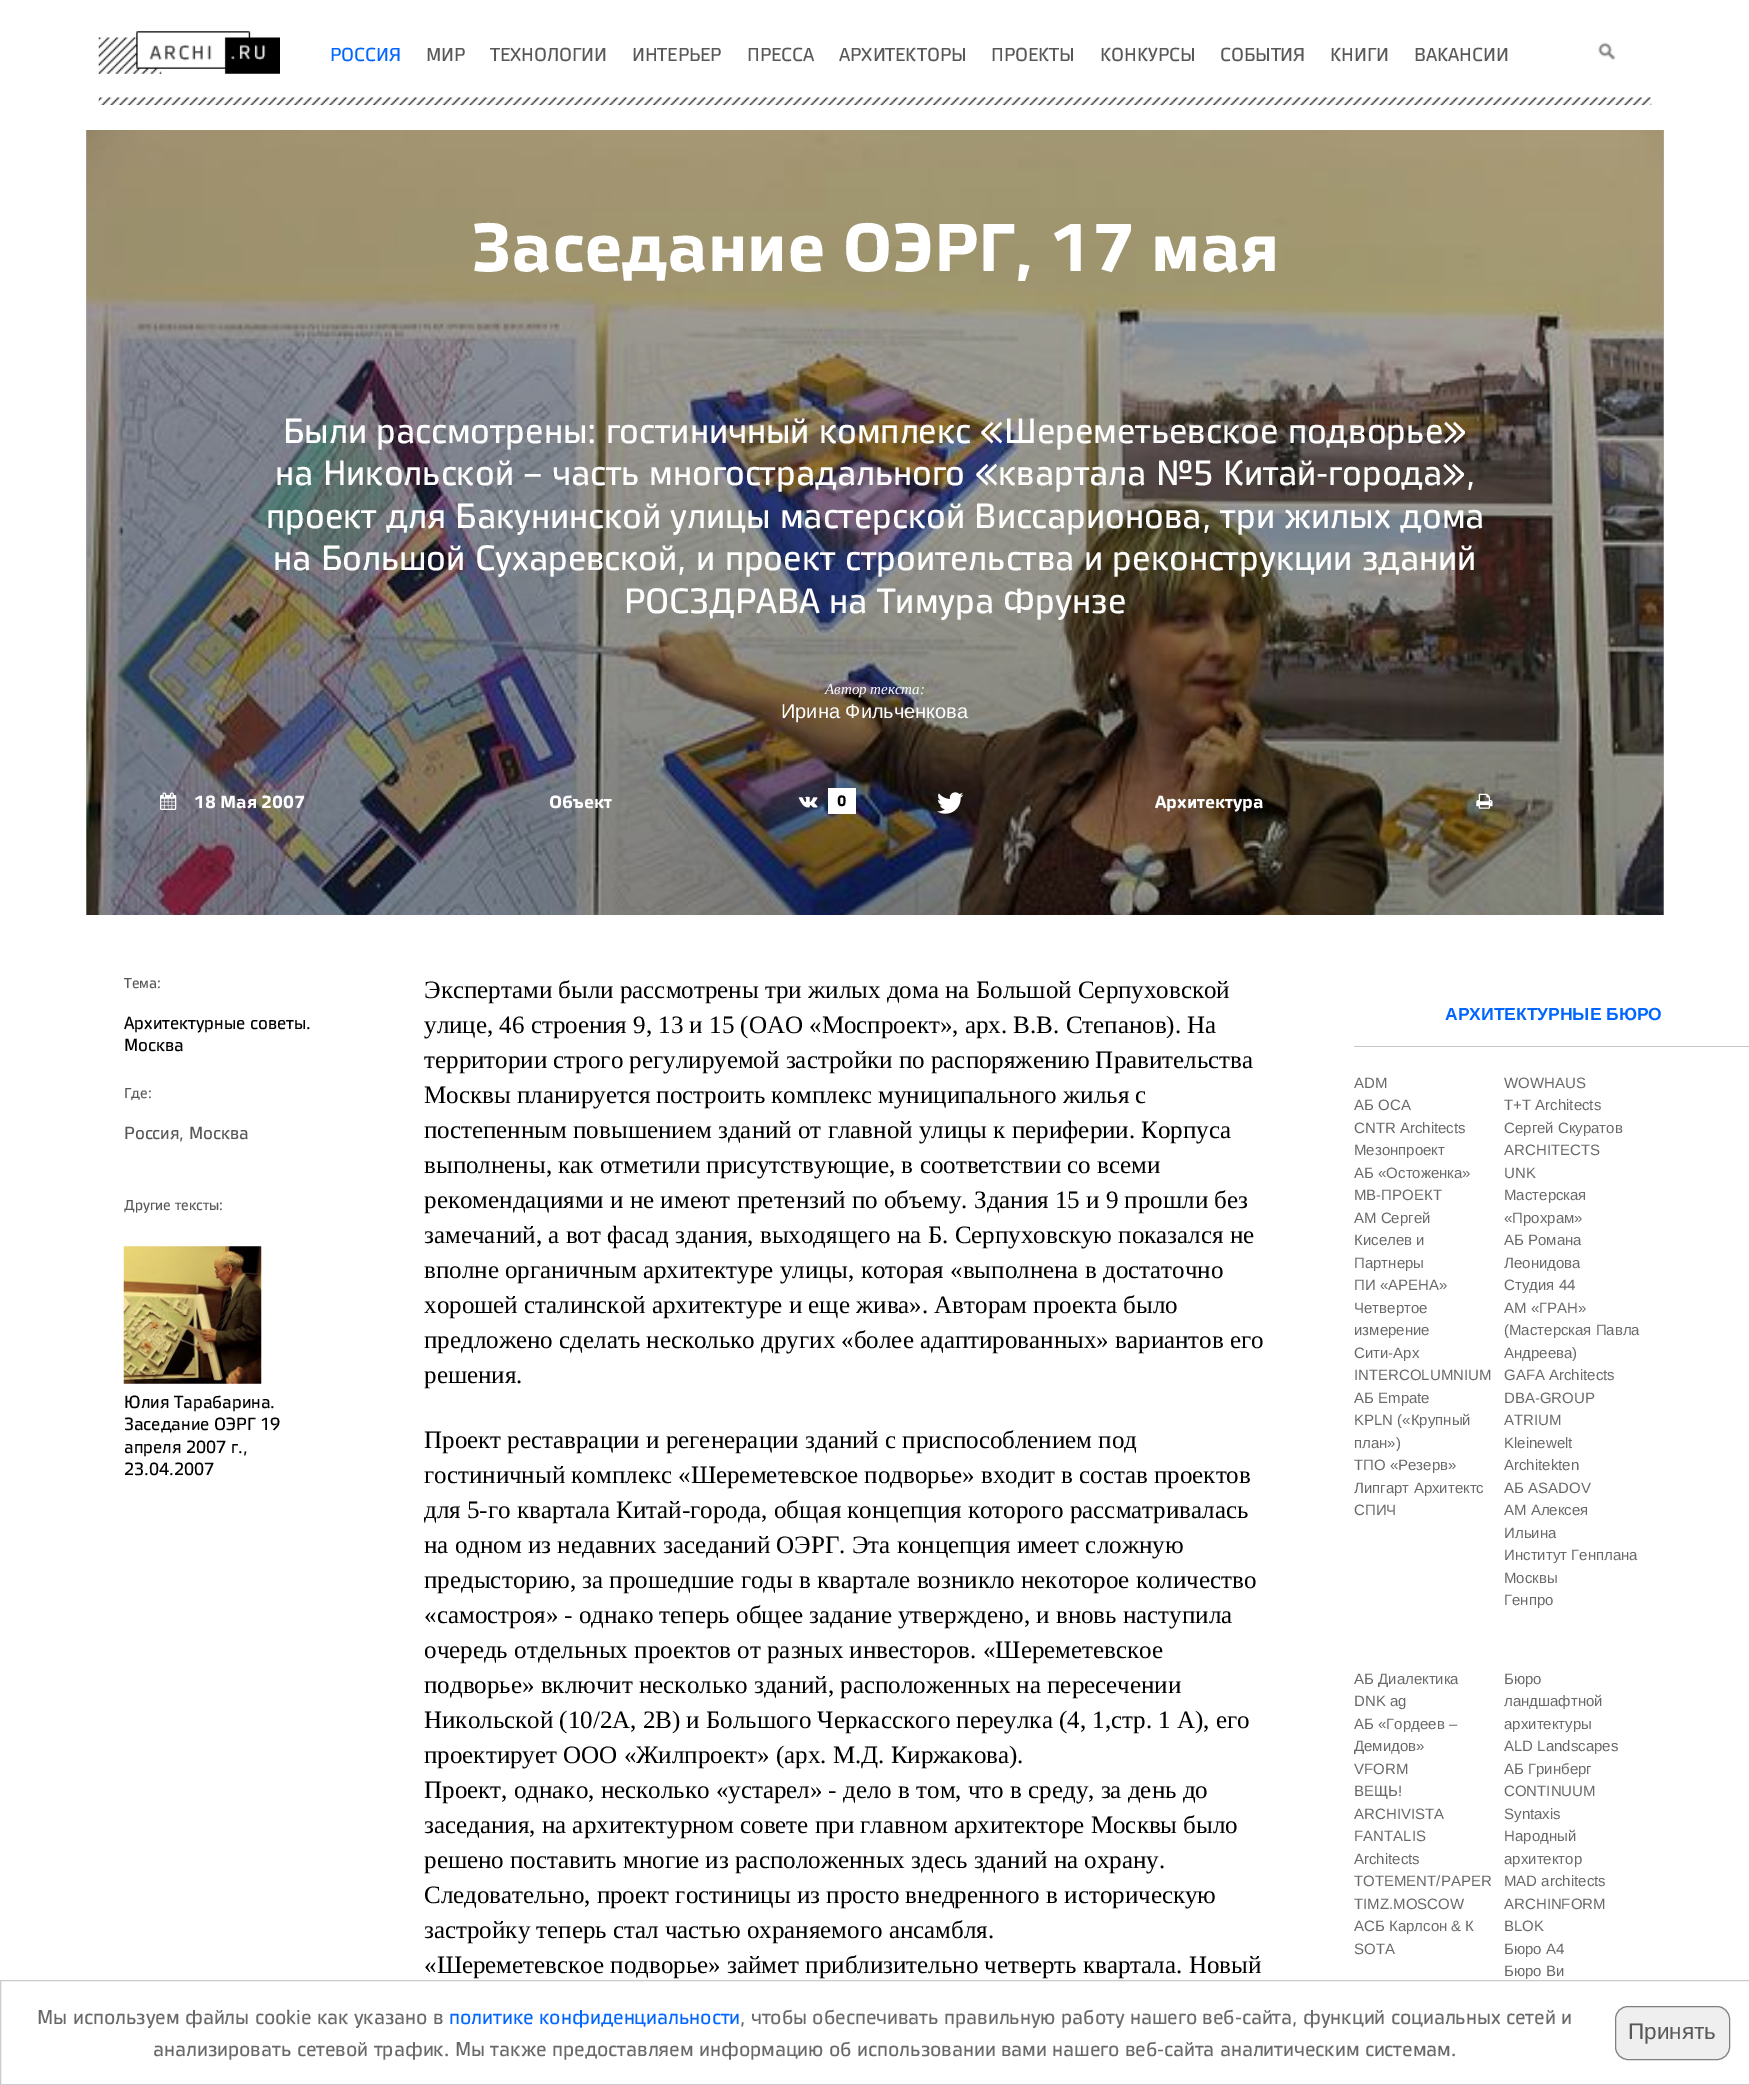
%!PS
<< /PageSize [1749 2085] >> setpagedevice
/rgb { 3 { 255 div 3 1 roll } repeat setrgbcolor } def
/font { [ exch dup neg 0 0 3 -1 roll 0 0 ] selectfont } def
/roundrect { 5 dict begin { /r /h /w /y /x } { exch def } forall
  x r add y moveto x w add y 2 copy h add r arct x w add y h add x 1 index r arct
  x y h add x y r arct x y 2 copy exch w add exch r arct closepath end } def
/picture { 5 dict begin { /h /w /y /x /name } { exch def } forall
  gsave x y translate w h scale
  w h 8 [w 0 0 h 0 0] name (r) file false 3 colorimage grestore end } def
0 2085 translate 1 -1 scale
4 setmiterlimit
255 255 255 rgb
0 0 1749 2085 rectfill
179 179 179 rgb
86 130 1578 785 rectfill
(img/1.rgb) 98 31 182 43 picture
(img/2.rgb) 1597 42 19 18 picture
(img/3.rgb) 98 97 1554 8 picture
(img/4.rgb) 86 130 1578 785 picture
(img/5.rgb) 160 792 17 18 picture
(img/6.rgb) 798 796 20 12 picture
255 255 255 rgb
828 788 28 26 rectfill
(img/7.rgb) 937 792 27 22 picture
(img/8.rgb) 1476 793 17 16 picture
(img/9.rgb) 123 1246 139 138 picture
199 197 197 rgb
1354 1046 395 1 rectfill
203 203 203 rgb
0.5 1980.5 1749 104 rectstroke
239 239 239 rgb
1615.5 2006.5 114 53 12.5 roundrect gsave fill grestore
128 128 128 rgb
stroke
/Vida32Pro-Regular 18.75 font
0 102 255 rgb
330 61 moveto (РОССИЯ) show
88 88 88 rgb
[
  [(МИР) 426 61]
  [(ТЕХНОЛОГИИ) 490 61]
  [(ИНТЕРЬЕР) 632 61]
  [(ПРЕССА) 747 61]
  [(АРХИТЕКТОРЫ) 839 61]
  [(ПРОЕКТЫ) 991 61]
  [(КОНКУРСЫ) 1100 61]
  [(СОБЫТИЯ) 1220 61]
  [(КНИГИ) 1330 61]
  [(ВАКАНСИИ) 1414 61]
] { aload pop moveto show } forall
/Vida32Pro-Bold 67.5 font
255 255 255 rgb
470 271 moveto (Заседание ОЭРГ, 17 мая) show
/Vida32Pro-Regular 35 font
[
  [(Были рассмотрены: гостиничный комплекс «Шереметьевское подворье») 283 443]
  [(на Никольской – часть многострадального «квартала №5 Китай-города»,) 275 485]
  [(проект для Бакунинской улицы мастерской Виссарионова, три жилых дома) 266 528]
  [(на Большой Сухаревской, и проект строительства и реконструкции зданий) 273 570]
  [(РОСЗДРАВА на Тимура Фрунзе) 624 613]
] { aload pop moveto show } forall
/LiberationSerif-Italic 15 font
825 694 moveto (Автор текста:) show
/LiberationSans-Regular 20 font
781 718 moveto (Ирина Фильченкова) show
/Vida32Pro-Bold 17.5 font
194 808 moveto (18 Мая 2007) show
549 808 moveto (Объект) show
/Vida32Pro-Bold 15 font
0 0 0 rgb
837 806 moveto (0) show
/Vida32Pro-Bold 17.5 font
255 255 255 rgb
1155 808 moveto (Архитектура) show
/Vida32Pro-Regular 14.5 font
88 88 88 rgb
124 988 moveto (Тема:) show
/Vida32Pro-Regular 17.5 font
0 0 0 rgb
124 1029 moveto (Архитектурные советы.) show
124 1051 moveto (Москва) show
/Vida32Pro-Regular 14.5 font
88 88 88 rgb
124 1098 moveto (Где:) show
/Vida32Pro-Regular 17.5 font
124 1139 moveto (Россия, Москва) show
/Vida32Pro-Regular 14.5 font
124 1210 moveto (Другие тексты:) show
/Vida32Pro-Regular 17.5 font
0 0 0 rgb
[
  [(Юлия Тарабарина.) 124 1408]
  [(Заседание ОЭРГ 19) 124 1430]
  [(апреля 2007 г.,) 124 1453]
  [(23.04.2007) 124 1475]
] { aload pop moveto show } forall
/LiberationSerif-Regular 25 font
[
  [(Экспертами были рассмотрены три жилых дома на Большой Серпуховской) 424 998]
  [(улице, 46 строения 9, 13 и 15 \(ОАО «Моспроект», арх. В.В. Степанов\). На) 424 1033]
  [(территории строго регулируемой застройки по распоряжению Правительства) 424 1068]
  [(Москвы планируется построить комплекс муниципального жилья с) 424 1103]
  [(постепенным повышением зданий от главной улицы к периферии. Корпуса) 424 1138]
  [(выполнены, как отметили присутствующие, в соответствии со всеми) 424 1173]
  [(рекомендациями и не имеют претензий по объему. Здания 15 и 9 прошли без) 424 1208]
  [(замечаний, а вот фасад здания, выходящего на Б. Серпуховскую показался не) 424 1243]
  [(вполне органичным архитектуре улицы, которая «выполнена в достаточно) 424 1278]
  [(хорошей сталинской архитектуре и еще жива». Авторам проекта было) 424 1313]
  [(предложено сделать несколько других «более адаптированных» вариантов его) 424 1348]
  [(решения.) 424 1383]
  [(Проект реставрации и регенерации зданий с приспособлением под) 424 1448]
  [(гостиничный комплекс «Шереметевское подворье» входит в состав проектов) 424 1483]
  [(для 5-го квартала Китай-города, общая концепция которого рассматривалась) 424 1518]
  [(на одном из недавних заседаний ОЭРГ. Эта концепция имеет сложную) 424 1553]
  [(предысторию, за прошедшие годы в квартале возникло некоторое количество) 424 1588]
  [(«самостроя» - однако теперь общее задание утверждено, и вновь наступила) 424 1623]
  [(очередь отдельных проектов от разных инвесторов. «Шереметевское) 424 1658]
  [(подворье» включит несколько зданий, расположенных на пересечении) 424 1693]
  [(Никольской \(10/2А, 2В\) и Большого Черкасского переулка \(4, 1,стр. 1 А\), его) 424 1728]
  [(проектирует ООО «Жилпроект» \(арх. М.Д. Киржакова\).) 424 1763]
  [(Проект, однако, несколько «устарел» - дело в том, что в среду, за день до) 424 1798]
  [(заседания, на архитектурном совете при главном архитекторе Москвы было) 424 1833]
  [(решено поставить многие из расположенных здесь зданий на охрану.) 424 1868]
  [(Следовательно, проект гостиницы из просто внедренного в историческую) 424 1903]
  [(застройку теперь стал частью охраняемого ансамбля.) 424 1938]
  [(«Шереметевское подворье» займет приблизительно четверть квартала. Новый) 424 1973]
] { aload pop moveto show } forall
/LiberationSans-Bold 17.5 font
0 102 255 rgb
1445 1020 moveto (АРХИТЕКТУРНЫЕ БЮРО) show
/LiberationSans-Regular 15 font
105 105 105 rgb
[
  [(ADM) 1354 1088]
  [(АБ ОСА) 1354 1110]
  [(CNTR Architects) 1354 1133]
  [(Мезонпроект) 1354 1155]
  [(АБ «Остоженка») 1354 1178]
  [(МВ-ПРОЕКТ) 1354 1200]
  [(АМ Сергей) 1354 1223]
  [(Киселев и) 1354 1245]
  [(Партнеры) 1354 1268]
  [(ПИ «АРЕНА») 1354 1290]
  [(Четвертое) 1354 1313]
  [(измерение) 1354 1335]
  [(Сити-Арх) 1354 1358]
  [(INTERCOLUMNIUM) 1354 1380]
  [(АБ Empate) 1354 1403]
  [(KPLN \(«Крупный) 1354 1425]
  [(план»\)) 1354 1448]
  [(ТПО «Резерв») 1354 1470]
  [(Липгарт Архитектс) 1354 1493]
  [(СПИЧ) 1354 1515]
  [(WOWHAUS) 1504 1088]
  [(Т+Т Architects) 1504 1110]
  [(Сергей Скуратов) 1504 1133]
  [(ARCHITECTS) 1504 1155]
  [(UNK) 1504 1178]
  [(Мастерская) 1504 1200]
  [(«Прохрам») 1504 1223]
  [(АБ Романа) 1504 1245]
  [(Леонидова) 1504 1268]
  [(Студия 44) 1504 1290]
  [(АМ «ГРАН») 1504 1313]
  [(\(Мастерская Павла) 1504 1335]
  [(Андреева\)) 1504 1358]
  [(GAFA Architects) 1504 1380]
  [(DBA-GROUP) 1504 1403]
  [(ATRIUM) 1504 1425]
  [(Kleinewelt) 1504 1448]
  [(Architekten) 1504 1470]
  [(АБ ASADOV) 1504 1493]
  [(АМ Алексея) 1504 1515]
  [(Ильина) 1504 1538]
  [(Институт Генплана) 1504 1560]
  [(Москвы) 1504 1583]
  [(Генпро) 1504 1605]
  [(АБ Диалектика) 1354 1684]
  [(DNK ag) 1354 1706]
  [(АБ «Гордеев –) 1354 1729]
  [(Демидов») 1354 1751]
  [(VFORM) 1354 1774]
  [(ВЕЩЬ!) 1354 1796]
  [(ARCHIVISTA) 1354 1819]
  [(FANTALIS) 1354 1841]
  [(Architects) 1354 1864]
  [(TOTEMENT/PAPER) 1354 1886]
  [(TIMZ.MOSCOW) 1354 1909]
  [(АСБ Карлсон & К) 1354 1931]
  [(SOTA) 1354 1954]
  [(Бюро) 1504 1684]
  [(ландшафтной) 1504 1706]
  [(архитектуры) 1504 1729]
  [(ALD Landscapes) 1504 1751]
  [(АБ Гринберг) 1504 1774]
  [(CONTINUUM) 1504 1796]
  [(Syntaxis) 1504 1819]
  [(Народный) 1504 1841]
  [(архитектор) 1504 1864]
  [(MAD architects) 1504 1886]
  [(ARCHINFORM) 1504 1909]
  [(BLOK) 1504 1931]
  [(Бюро А4) 1504 1954]
  [(Бюро Ви) 1504 1976]
] { aload pop moveto show } forall
/Vida32Pro-Regular 20 font
37 2024 moveto (Мы используем файлы cookie как указано в) show
0 102 255 rgb
449 2024 moveto (политике конфиденциальности) show
105 105 105 rgb
740 2024 moveto (, чтобы обеспечивать правильную работу нашего веб-сайта, функций социальных сетей и) show
153 2056 moveto (анализировать сетевой трафик. Мы также предоставляем информацию об использовании вами нашего веб-сайта аналитическим системам.) show
/LiberationSans-Regular 22.5 font
88 88 88 rgb
1628 2039 moveto (Принять) show
showpage
